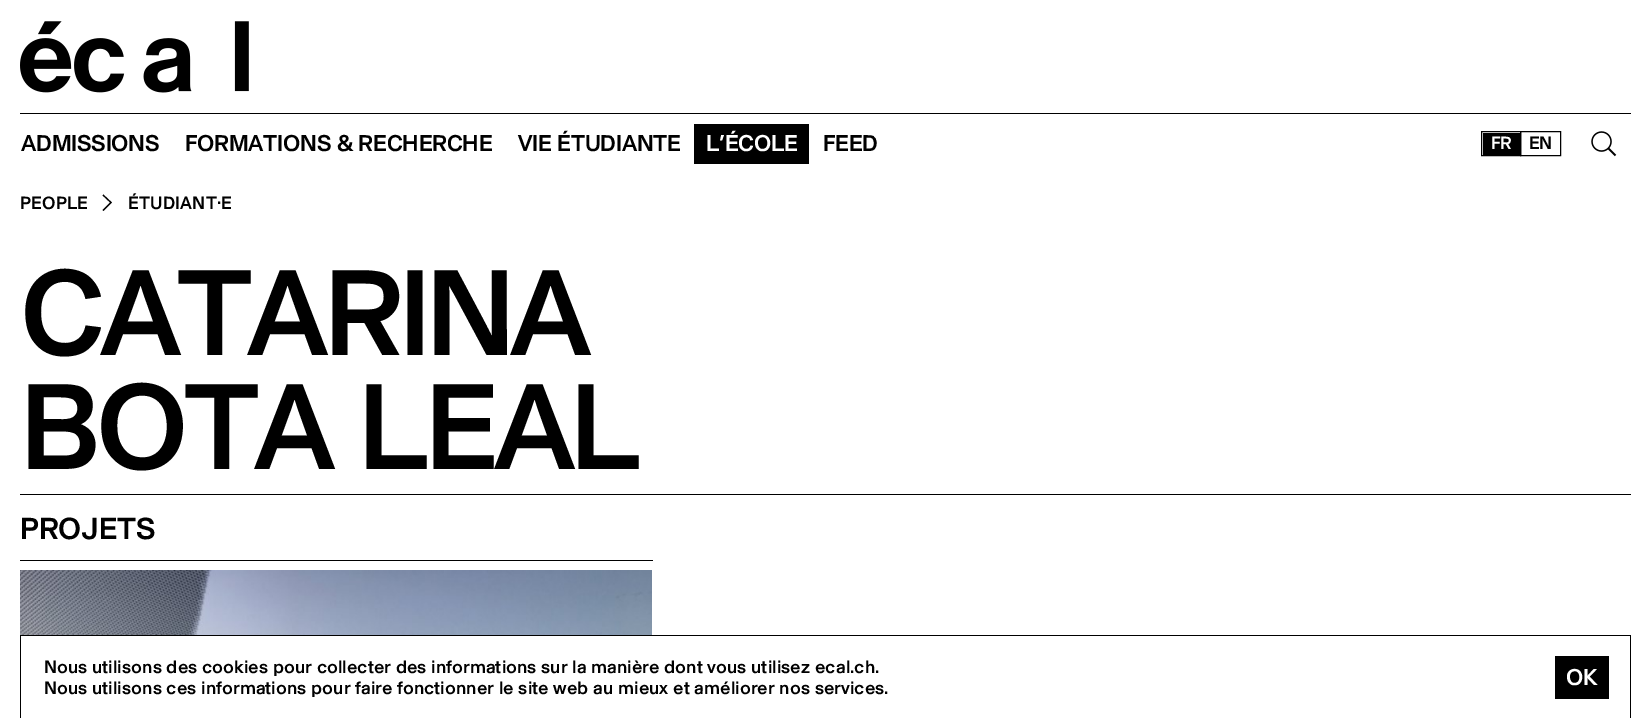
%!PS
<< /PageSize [1651 718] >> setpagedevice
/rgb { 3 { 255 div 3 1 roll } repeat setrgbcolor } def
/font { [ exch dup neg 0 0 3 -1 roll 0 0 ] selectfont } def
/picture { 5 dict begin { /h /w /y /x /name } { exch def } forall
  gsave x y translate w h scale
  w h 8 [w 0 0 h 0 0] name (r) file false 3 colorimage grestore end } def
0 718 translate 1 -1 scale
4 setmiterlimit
255 255 255 rgb
0 0 1651 718 rectfill
(img/1.rgb) 20 21 229 72 picture
[
  [20 113 1611 1 0 0 0]
  [694 124 115 40 0 0 0]
  [1483 133 37 22 0 0 0]
] { aload pop rgb rectfill } forall
1481.5 131.5 39 24 rectstroke
1520.5 131.5 40 24 rectstroke
(img/2.rgb) 1591 131 26 26 picture
1.2 setlinewidth
103 195 moveto 111 202.5 lineto 103 210.5 lineto stroke
20 494 1611 1 rectfill
20 560 633 1 rectfill
(img/3.rgb) 20 570 632 65 picture
[
  [20 635 1611 1 0 0 0]
  [1630 635 1 83 0 0 0]
  [20 635 1 83 0 0 0]
  [1555 656 54 43 0 0 0]
] { aload pop rgb rectfill } forall
/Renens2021-Medium 22.5 font
21 151 moveto -0.25 0 (ADMISSIONS) ashow
185 151 moveto -0.25 0 (FORMATIONS & RECHERCHE) ashow
518 151 moveto -0.25 0 (VIE ÉTUDIANTE) ashow
255 255 255 rgb
706 151 moveto -0.25 0 (L’ÉCOLE) ashow
0 0 0 rgb
823 151 moveto -0.25 0 (FEED) ashow
/Renens2021-Medium 17.5 font
255 255 255 rgb
1491 149 moveto -0.25 0 (FR) ashow
0 0 0 rgb
1529 149 moveto -0.25 0 (EN) ashow
20 209 moveto 0.25 0 (PEOPLE) ashow
128 209 moveto 0.25 0 (ÉTUDIANT·E) ashow
/Renens2021-Medium 120 font
20 355 moveto -4.75 0 (CATARINA) ashow
20 469 moveto -4.75 0 (BOTA LEAL) ashow
/Renens2021-Medium 30 font
20 539 moveto (PROJETS) show
/Renens2021-Medium 17.5 font
44 673 moveto (Nous utilisons des cookies pour collecter des informations sur la manière dont vous utilisez ecal.ch.) show
/Renens2021-Medium 22.5 font
255 255 255 rgb
1566 685 moveto (OK) show
/Renens2021-Medium 17.5 font
0 0 0 rgb
44 694 moveto (Nous utilisons ces informations pour faire fonctionner le site web au mieux et améliorer nos services.) show
showpage
